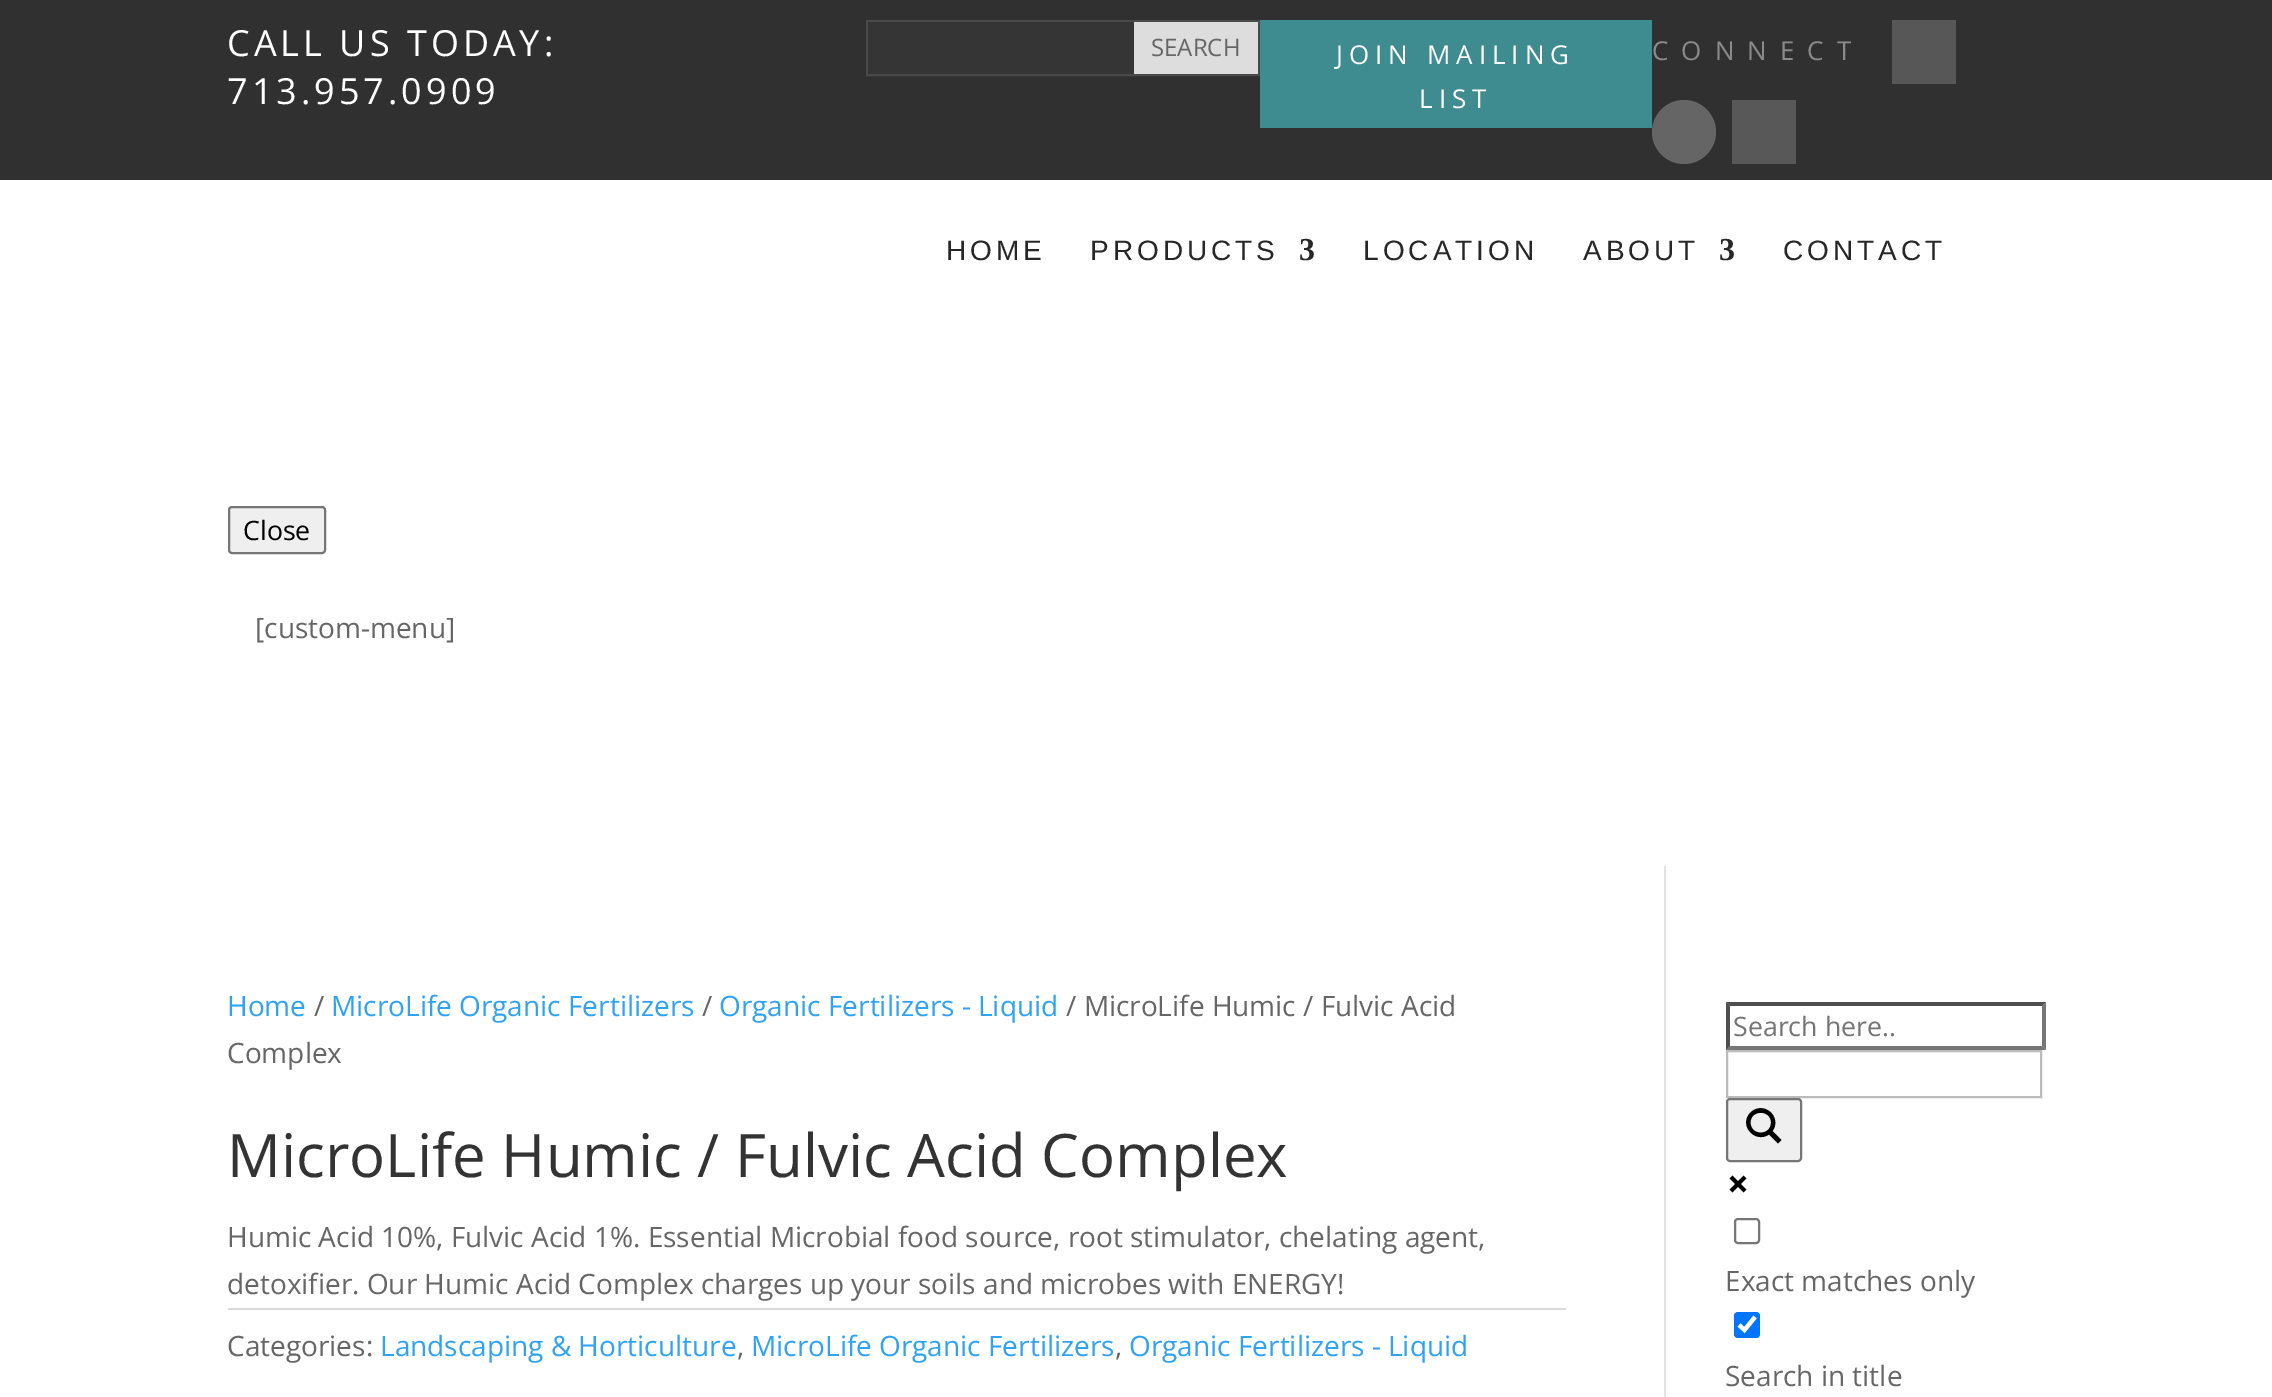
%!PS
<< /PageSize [2272 1397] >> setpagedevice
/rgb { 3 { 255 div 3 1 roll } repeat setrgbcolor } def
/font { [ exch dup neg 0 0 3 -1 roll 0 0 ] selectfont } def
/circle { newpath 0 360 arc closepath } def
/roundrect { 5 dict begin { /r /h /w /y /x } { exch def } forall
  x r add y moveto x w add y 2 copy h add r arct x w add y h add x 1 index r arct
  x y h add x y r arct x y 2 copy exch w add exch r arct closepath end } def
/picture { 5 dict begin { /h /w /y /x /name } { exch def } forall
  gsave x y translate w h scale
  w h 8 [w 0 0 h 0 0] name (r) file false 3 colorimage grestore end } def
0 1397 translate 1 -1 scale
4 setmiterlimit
255 255 255 rgb
0 0 2272 1397 rectfill
48 48 48 rgb
0 0 2272 180 rectfill
74 74 74 rgb
2 setlinewidth
867 21 392 54 rectstroke
[
  [868 22 266 52 53 53 53]
  [1134 22 124 52 221 221 221]
  [1260 20 392 108 62 140 144]
  [1892 20 64 64 87 87 87]
] { aload pop rgb rectfill } forall
101 101 101 rgb
1684 132 32 circle fill
88 88 88 rgb
1732 100 64 64 rectfill
239 239 239 rgb
229 507 96 46 3 roundrect gsave fill grestore
118 118 118 rgb
stroke
226 226 226 rgb
1664 866 2 531 rectfill
218 218 218 rgb
228 1308 1338 2 rectfill
79 79 79 rgb
1726 1002 moveto 2046 1002 lineto 2042 1006 lineto 1730 1006 lineto closepath fill
118 118 118 rgb
2046 1002 moveto 2046 1050 lineto 2042 1046 lineto 2042 1006 lineto closepath fill
2046 1050 moveto 1726 1050 lineto 1730 1046 lineto 2042 1046 lineto closepath fill
79 79 79 rgb
1726 1050 moveto 1726 1002 lineto 1730 1006 lineto 1730 1046 lineto closepath fill
187 187 187 rgb
1727 1051 314 46 rectstroke
239 239 239 rgb
1727 1099 74 62 3 roundrect gsave fill grestore
118 118 118 rgb
stroke
0 0 0 rgb
1781.5 1140 moveto 1772.5 1131 lineto 1782.5 1117 1763.5 1100 1750.5 1112.5 curveto 1738 1125 1755 1144 1769 1134.5 curveto 1778 1143.5 lineto closepath 1750.5 1122.5 moveto 1750.5 1109.5 1771 1109.5 1771 1122.5 curveto 1771 1136 1750.5 1136 1750.5 1122.5 curveto closepath fill
(img/1.rgb) 1729 1175 18 18 picture
118 118 118 rgb
1735 1219 24 24 3 roundrect stroke
0 117 255 rgb
1734 1312 26 26 4 roundrect fill
255 255 255 rgb
4.2 setlinewidth
1739 1325 moveto 1744.5 1330 lineto 1755 1317 lineto stroke
/OpenSans-Regular 36 font
227 56 moveto 4 0 (CALL US TODAY:) ashow
227 104 moveto 4 0 (713.957.0909) ashow
/OpenSans-Regular 24 font
102 102 102 rgb
1151 56 moveto (SEARCH) show
/OpenSans-Regular 26 font
255 255 255 rgb
1336 64 moveto 6 0 (JOIN MAILING) ashow
1419 108 moveto 6 0 (LIST) ashow
139 139 139 rgb
1652 60 moveto 13 0 (CONNECT) ashow
/LiberationSans-Regular 28 font
39 39 39 rgb
946 260 moveto 4 0 (HOME) ashow
1090 260 moveto 4 0 (PRODUCTS) ashow
/LiberationSerif-Bold 32 font
1299 260 moveto 4 0 (3) ashow
/LiberationSans-Regular 28 font
1363 260 moveto 4 0 (LOCATION) ashow
1583 260 moveto 4 0 (ABOUT) ashow
/LiberationSerif-Bold 32 font
1719 260 moveto 4 0 (3) ashow
/LiberationSans-Regular 28 font
1783 260 moveto 4 0 (CONTACT) ashow
/OpenSans-Regular 26.75 font
0 0 0 rgb
243 540 moveto (Close) show
/OpenSans-Regular 28 font
102 102 102 rgb
255 638 moveto ([custom-menu]) show
46 163 242 rgb
227 1016 moveto (Home) show
102 102 102 rgb
314 1016 moveto (/) show
46 163 242 rgb
331 1016 moveto (MicroLife Organic Fertilizers) show
102 102 102 rgb
702 1016 moveto (/) show
46 163 242 rgb
719 1016 moveto (Organic Fertilizers - Liquid) show
102 102 102 rgb
1066 1016 moveto (/ MicroLife Humic / Fulvic Acid) show
227 1063 moveto (Complex) show
/OpenSans-Regular 60 font
51 51 51 rgb
227 1177 moveto (MicroLife Humic / Fulvic Acid Complex) show
/OpenSans-Regular 28 font
102 102 102 rgb
[
  [(Humic Acid 10%, Fulvic Acid 1%. Essential Microbial food source, root stimulator, chelating agent,) 227 1247]
  [(detoxifier. Our Humic Acid Complex charges up your soils and microbes with ENERGY!) 227 1294]
  [(Categories:) 227 1356]
] { aload pop moveto show } forall
46 163 242 rgb
380 1356 moveto (Landscaping & Horticulture) show
102 102 102 rgb
737 1356 moveto (,) show
46 163 242 rgb
751 1356 moveto (MicroLife Organic Fertilizers) show
102 102 102 rgb
1115 1356 moveto (,) show
46 163 242 rgb
1129 1356 moveto (Organic Fertilizers - Liquid) show
/OpenSans-Regular 26.75 font
117 117 117 rgb
1733 1036 moveto (Search here..) show
/OpenSans-Regular 28 font
102 102 102 rgb
1725 1291 moveto (Exact matches only) show
1725 1386 moveto (Search in title) show
showpage
